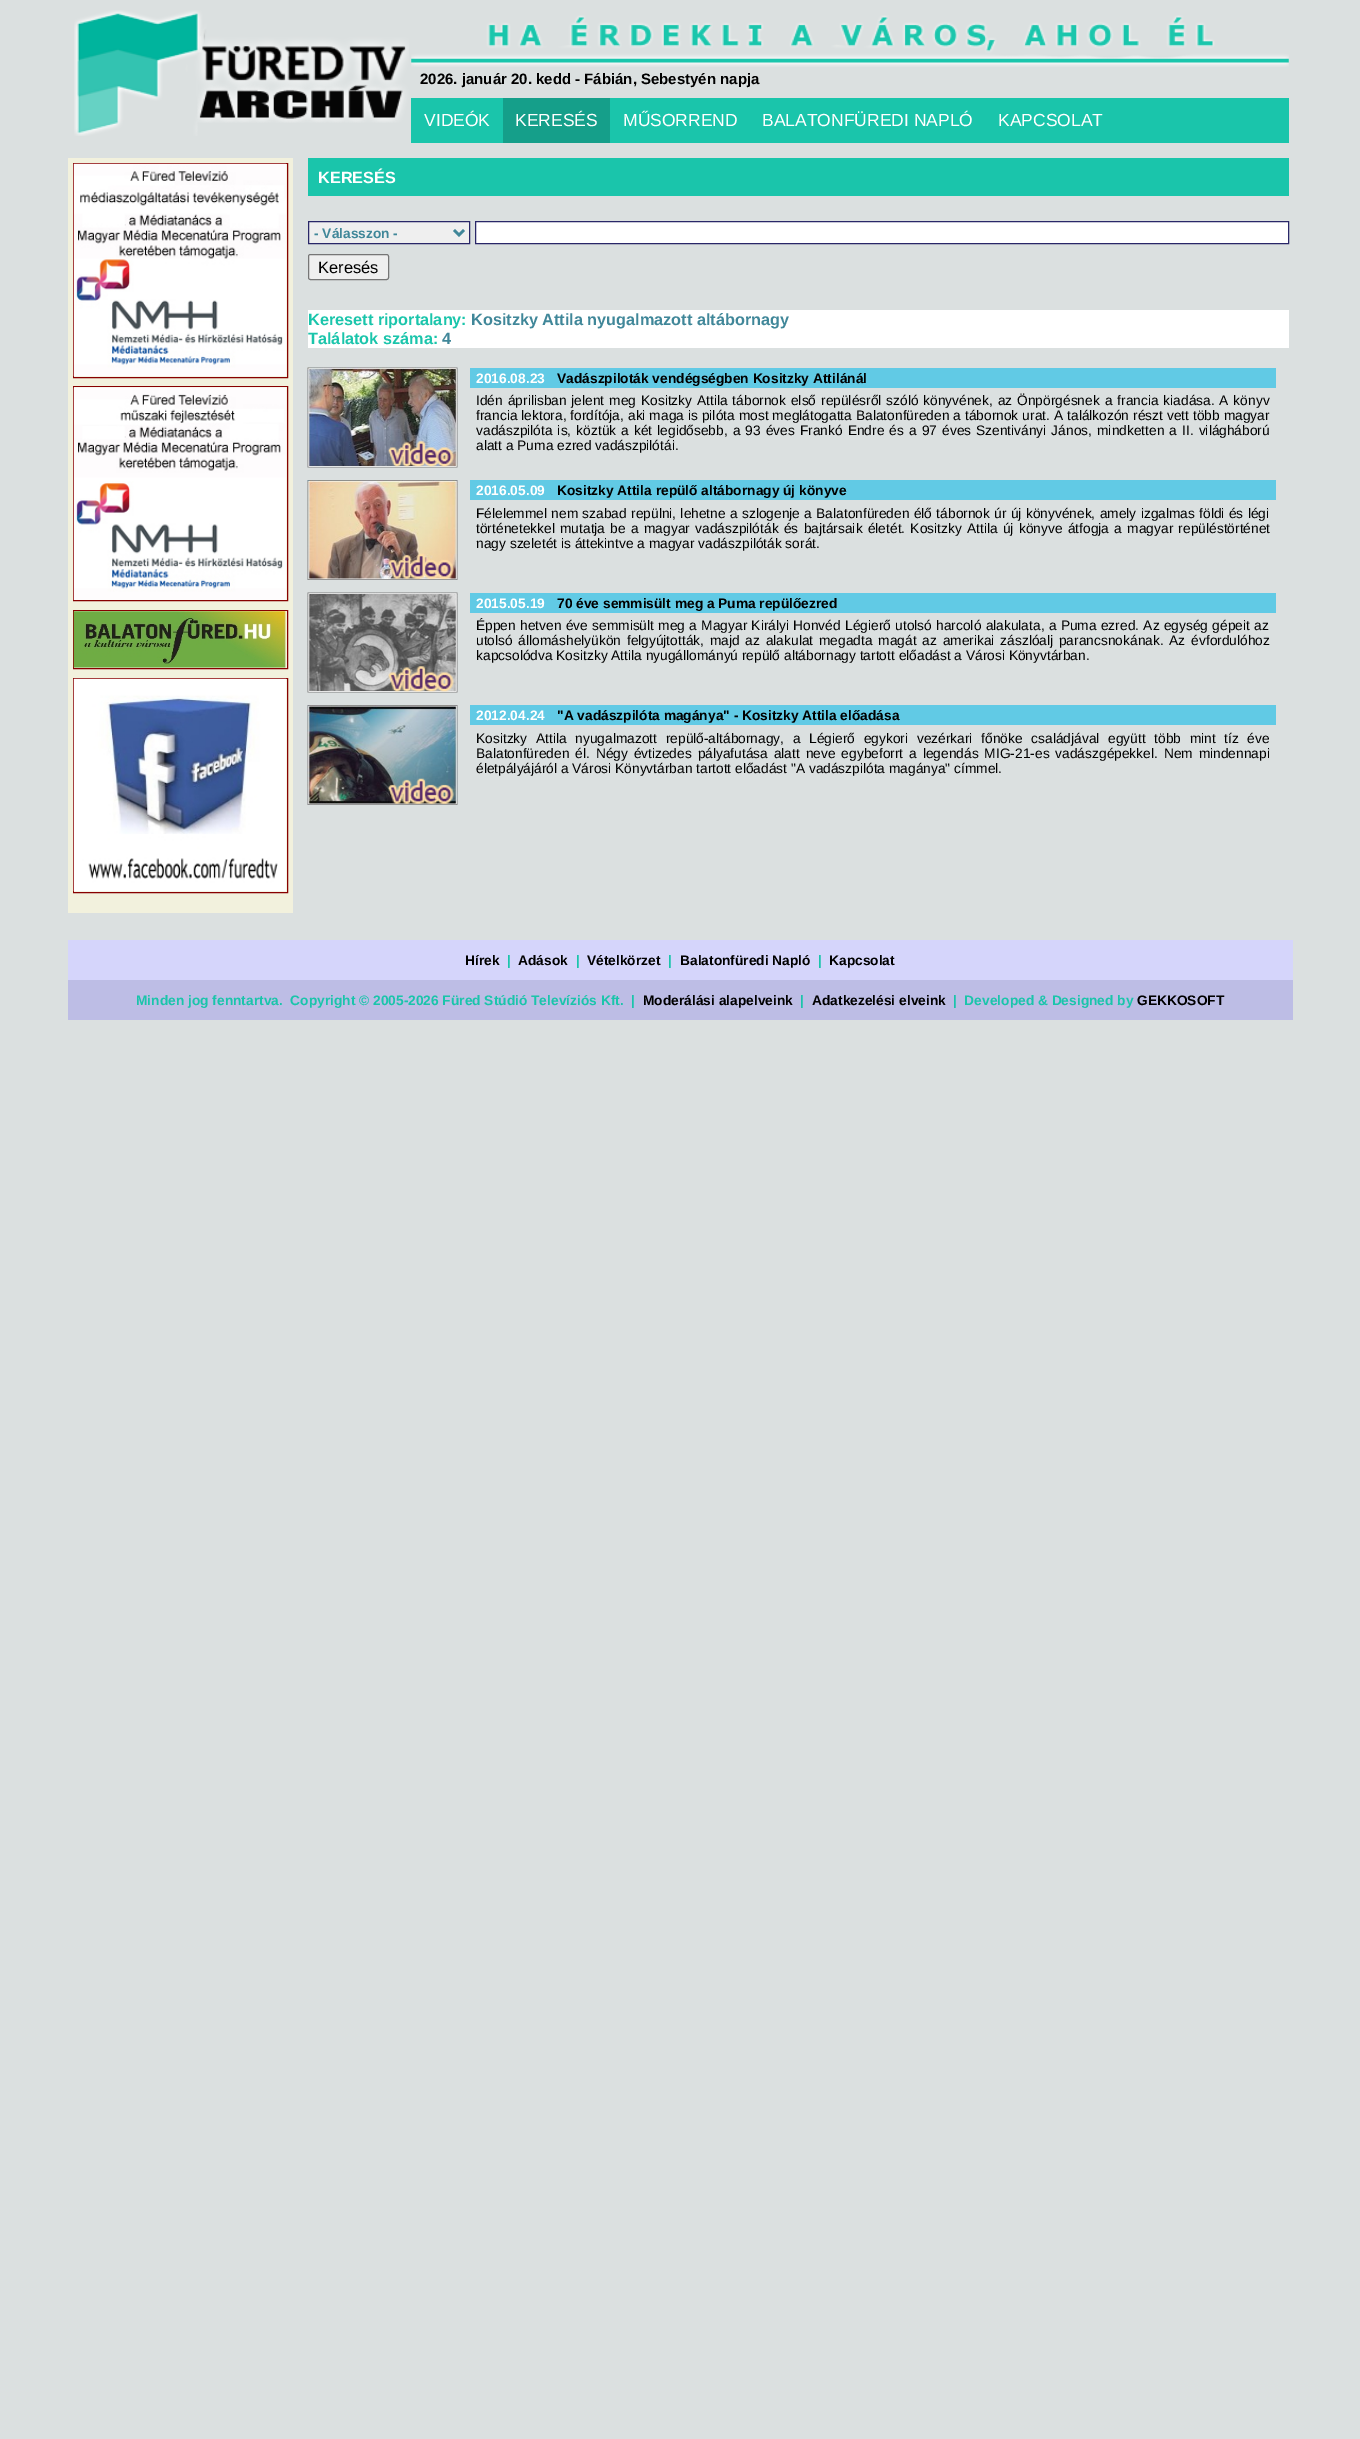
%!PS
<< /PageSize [1360 2439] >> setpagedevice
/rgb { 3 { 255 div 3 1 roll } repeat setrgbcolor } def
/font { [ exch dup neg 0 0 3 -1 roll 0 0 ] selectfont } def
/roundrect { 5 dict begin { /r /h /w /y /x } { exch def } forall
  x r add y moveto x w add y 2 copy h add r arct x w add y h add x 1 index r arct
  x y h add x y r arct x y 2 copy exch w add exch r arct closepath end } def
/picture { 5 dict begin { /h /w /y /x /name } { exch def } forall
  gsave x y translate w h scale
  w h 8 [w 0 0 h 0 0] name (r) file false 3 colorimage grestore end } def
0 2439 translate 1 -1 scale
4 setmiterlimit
219 224 224 rgb
0 0 1360 2439 rectfill
(img/1.rgb) 74 10 335 126 picture
(img/2.rgb) 411 15 878 52 picture
[
  [411 98 878 45 26 197 171]
  [503 98 107 45 21 159 138]
  [68 158 225 755 242 241 221]
] { aload pop rgb rectfill } forall
136 0 0 rgb
73.5 163.5 214 214 rectstroke
(img/3.rgb) 73 163 214 214 picture
73.5 386.5 214 214 rectstroke
(img/4.rgb) 73 387 214 213 picture
73.5 610.5 214 58 rectstroke
(img/5.rgb) 73 611 214 57 picture
73.5 678.5 214 214 rectstroke
(img/6.rgb) 73 678 214 214 picture
26 197 171 rgb
308 158 981 38 rectfill
239 239 239 rgb
308.5 221.5 moveto 469.5 221.5 lineto 469.5 243.5 lineto 308.5 243.5 lineto closepath gsave fill grestore
41 39 104 rgb
stroke
64 135 153 rgb
2.5 setlinewidth
454 230 moveto 459 235 lineto 464 230 lineto stroke
255 255 255 rgb
475.5 221.5 moveto 1288.5 221.5 lineto 1288.5 243.5 lineto 475.5 243.5 lineto closepath gsave fill grestore
41 39 104 rgb
1 setlinewidth
stroke
239 239 239 rgb
308.5 254.5 80 25 2 roundrect gsave fill grestore
118 118 118 rgb
stroke
255 255 255 rgb
308 310 981 38 rectfill
(img/7.rgb) 307 367 151 101 picture
(img/8.rgb) 388 441 66 26 picture
97 202 229 rgb
470 368 806 20 rectfill
(img/9.rgb) 307 480 151 100 picture
(img/10.rgb) 388 553 66 26 picture
470 480 806 20 rectfill
(img/11.rgb) 307 592 151 101 picture
(img/12.rgb) 388 666 66 26 picture
470 593 806 20 rectfill
(img/13.rgb) 307 705 151 100 picture
(img/14.rgb) 387 778 67 26 picture
[
  [470 705 806 20 97 202 229]
  [68 940 1225 40 213 213 251]
  [68 980 1225 40 189 189 229]
] { aload pop rgb rectfill } forall
/LiberationSans-Bold 15 font
0 0 0 rgb
420 84 moveto (2026. január 20. kedd - Fábián, Sebestyén napja) show
/LiberationSans-Regular 17.5 font
255 255 255 rgb
[
  [(VIDEÓK) 424 126]
  [(KERESÉS) 515 126]
  [(MŰSORREND) 623 126]
  [(BALATONFÜREDI NAPLÓ) 762 126]
  [(KAPCSOLAT) 998 126]
] { aload pop moveto show } forall
/LiberationSans-Bold 16.25 font
318 183 moveto (KERESÉS) show
/LiberationSans-Bold 13.75 font
64 135 153 rgb
314 238 moveto (- Válasszon -) show
/LiberationSans-Regular 16.5 font
0 0 0 rgb
318 273 moveto (Keresés) show
/LiberationSans-Bold 16.25 font
26 197 171 rgb
308 325 moveto (Keresett riportalany:) show
64 135 153 rgb
471 325 moveto (Kositzky Attila nyugalmazott altábornagy) show
26 197 171 rgb
308 344 moveto (Találatok száma:) show
64 135 153 rgb
442 344 moveto (4) show
/LiberationSans-Bold 13.75 font
255 255 255 rgb
476 383 moveto (2016.08.23) show
0 0 0 rgb
557 383 moveto (Vadászpiloták vendégségben Kositzky Attilánál) show
/LiberationSans-Regular 13.75 font
476 405 moveto 1.1 0 32 (Idén áprilisban jelent meg Kositzky Attila tábornok első repülésről szóló könyvének, az Önpörgésnek a francia kiadása. A könyv) widthshow
476 420 moveto 0.2 0 32 (francia lektora, fordítója, aki maga is pilóta most meglátogatta Balatonfüreden a tábornok urat. A találkozón részt vett több magyar) widthshow
476 435 moveto 1.25 0 32 (vadászpilóta is, köztük a két legidősebb, a 93 éves Frankó Endre és a 97 éves Szentiványi János, mindketten a II. világháború) widthshow
476 450 moveto (alatt a Puma ezred vadászpilótái.) show
/LiberationSans-Bold 13.75 font
255 255 255 rgb
476 495 moveto (2016.05.09) show
0 0 0 rgb
557 495 moveto (Kositzky Attila repülő altábornagy új könyve) show
/LiberationSans-Regular 13.75 font
476 518 moveto 0.5 0 32 (Félelemmel nem szabad repülni, lehetne a szlogenje a Balatonfüreden élő tábornok úr új könyvének, amely izgalmas földi és légi) widthshow
476 533 moveto 1.5 0 32 (történetekkel mutatja be a magyar vadászpilóták és bajtársaik életét. Kositzky Attila új könyve átfogja a magyar repüléstörténet) widthshow
476 548 moveto (nagy szeletét is áttekintve a magyar vadászpilóták sorát.) show
/LiberationSans-Bold 13.75 font
255 255 255 rgb
476 608 moveto (2015.05.19) show
0 0 0 rgb
557 608 moveto (70 éve semmisült meg a Puma repülőezred) show
/LiberationSans-Regular 13.75 font
476 630 moveto 0.5 0 32 (Éppen hetven éve semmisült meg a Magyar Királyi Honvéd Légierő utolsó harcoló alakulata, a Puma ezred. Az egység gépeit az) widthshow
476 645 moveto 2 0 32 (utolsó állomáshelyükön felgyújtották, majd az alakulat megadta magát az amerikai zászlóalj parancsnokának. Az évfordulóhoz) widthshow
476 660 moveto (kapcsolódva Kositzky Attila nyugállományú repülő altábornagy tartott előadást a Városi Könyvtárban.) show
/LiberationSans-Bold 13.75 font
255 255 255 rgb
476 720 moveto (2012.04.24) show
0 0 0 rgb
557 720 moveto ("A vadászpilóta magánya" - Kositzky Attila előadása) show
/LiberationSans-Regular 13.75 font
476 743 moveto 4.9 0 32 (Kositzky Attila nyugalmazott repülő-altábornagy, a Légierő egykori vezérkari főnöke családjával együtt több mint tíz éve) widthshow
476 758 moveto 2.1 0 32 (Balatonfüreden él. Négy évtizedes pályafutása alatt neve egybeforrt a legendás MIG-21-es vadászgépekkel. Nem mindennapi) widthshow
476 773 moveto (életpályájáról a Városi Könyvtárban tartott előadást "A vadászpilóta magánya" címmel.) show
/LiberationSans-Bold 13.75 font
465 965 moveto (Hírek) show
26 197 171 rgb
507 965 moveto (|) show
0 0 0 rgb
518 965 moveto (Adások) show
26 197 171 rgb
576 965 moveto (|) show
0 0 0 rgb
587 965 moveto (Vételkörzet) show
26 197 171 rgb
668 965 moveto (|) show
0 0 0 rgb
680 965 moveto (Balatonfüredi Napló) show
26 197 171 rgb
818 965 moveto (|) show
0 0 0 rgb
829 965 moveto (Kapcsolat) show
26 197 171 rgb
136 1005 moveto (Minden jog fenntartva.  Copyright © 2005-2026 Füred Stúdió Televíziós Kft.  |) show
0 0 0 rgb
643 1005 moveto (Moderálási alapelveink) show
26 197 171 rgb
800 1005 moveto (|) show
0 0 0 rgb
812 1005 moveto (Adatkezelési elveink) show
26 197 171 rgb
953 1005 moveto (|  Developed & Designed by) show
0 0 0 rgb
1137 1005 moveto (GEKKOSOFT) show
showpage
